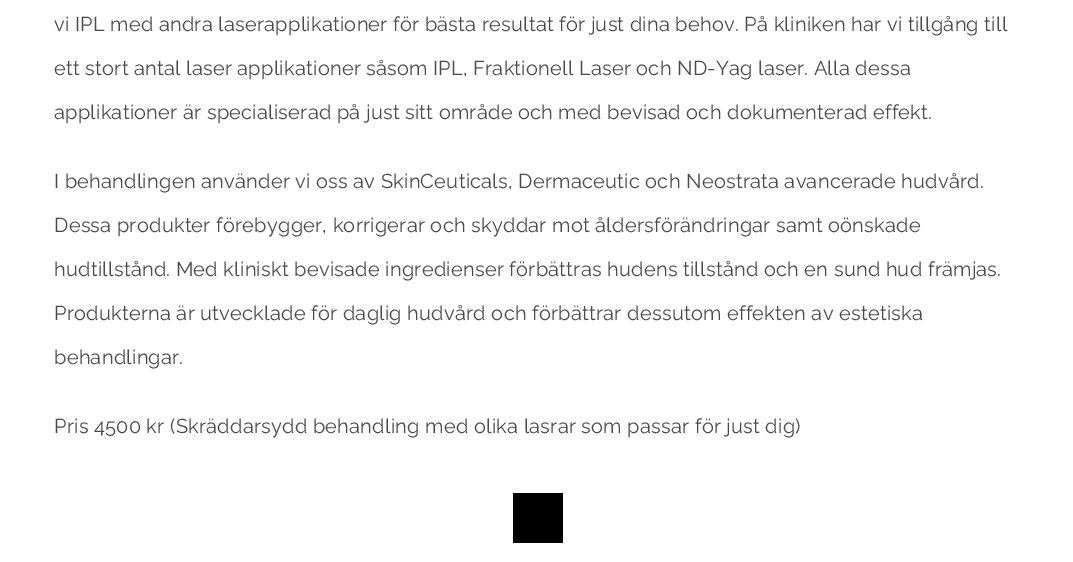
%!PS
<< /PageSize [1073 562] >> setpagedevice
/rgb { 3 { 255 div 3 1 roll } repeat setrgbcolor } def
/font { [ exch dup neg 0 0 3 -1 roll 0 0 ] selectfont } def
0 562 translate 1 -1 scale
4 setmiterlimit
255 255 255 rgb
0 0 1073 562 rectfill
0 0 0 rgb
513 493 50 50 rectfill
/Raleway-Regular 20 font
74 74 74 rgb
54 31 moveto 0.25 0 (vi IPL med andra laserapplikationer för bästa resultat för just dina behov. På kliniken har vi tillgång till) ashow
54 75 moveto 0.25 0 (ett stort antal laser applikationer såsom IPL, Fraktionell Laser och ND-Yag laser. Alla dessa) ashow
54 119 moveto 0.25 0 (applikationer är specialiserad på just sitt område och med bevisad och dokumenterad effekt.) ashow
54 188 moveto 0.25 0 (I behandlingen använder vi oss av SkinCeuticals, Dermaceutic och Neostrata avancerade hudvård.) ashow
54 232 moveto 0.25 0 (Dessa produkter förebygger, korrigerar och skyddar mot åldersförändringar samt oönskade) ashow
54 276 moveto 0.25 0 (hudtillstånd. Med kliniskt bevisade ingredienser förbättras hudens tillstånd och en sund hud främjas.) ashow
54 320 moveto 0.25 0 (Produkterna är utvecklade för daglig hudvård och förbättrar dessutom effekten av estetiska) ashow
54 364 moveto 0.25 0 (behandlingar.) ashow
54 433 moveto 0.25 0 (Pris 4500 kr \(Skräddarsydd behandling med olika lasrar som passar för just dig\)) ashow
showpage
